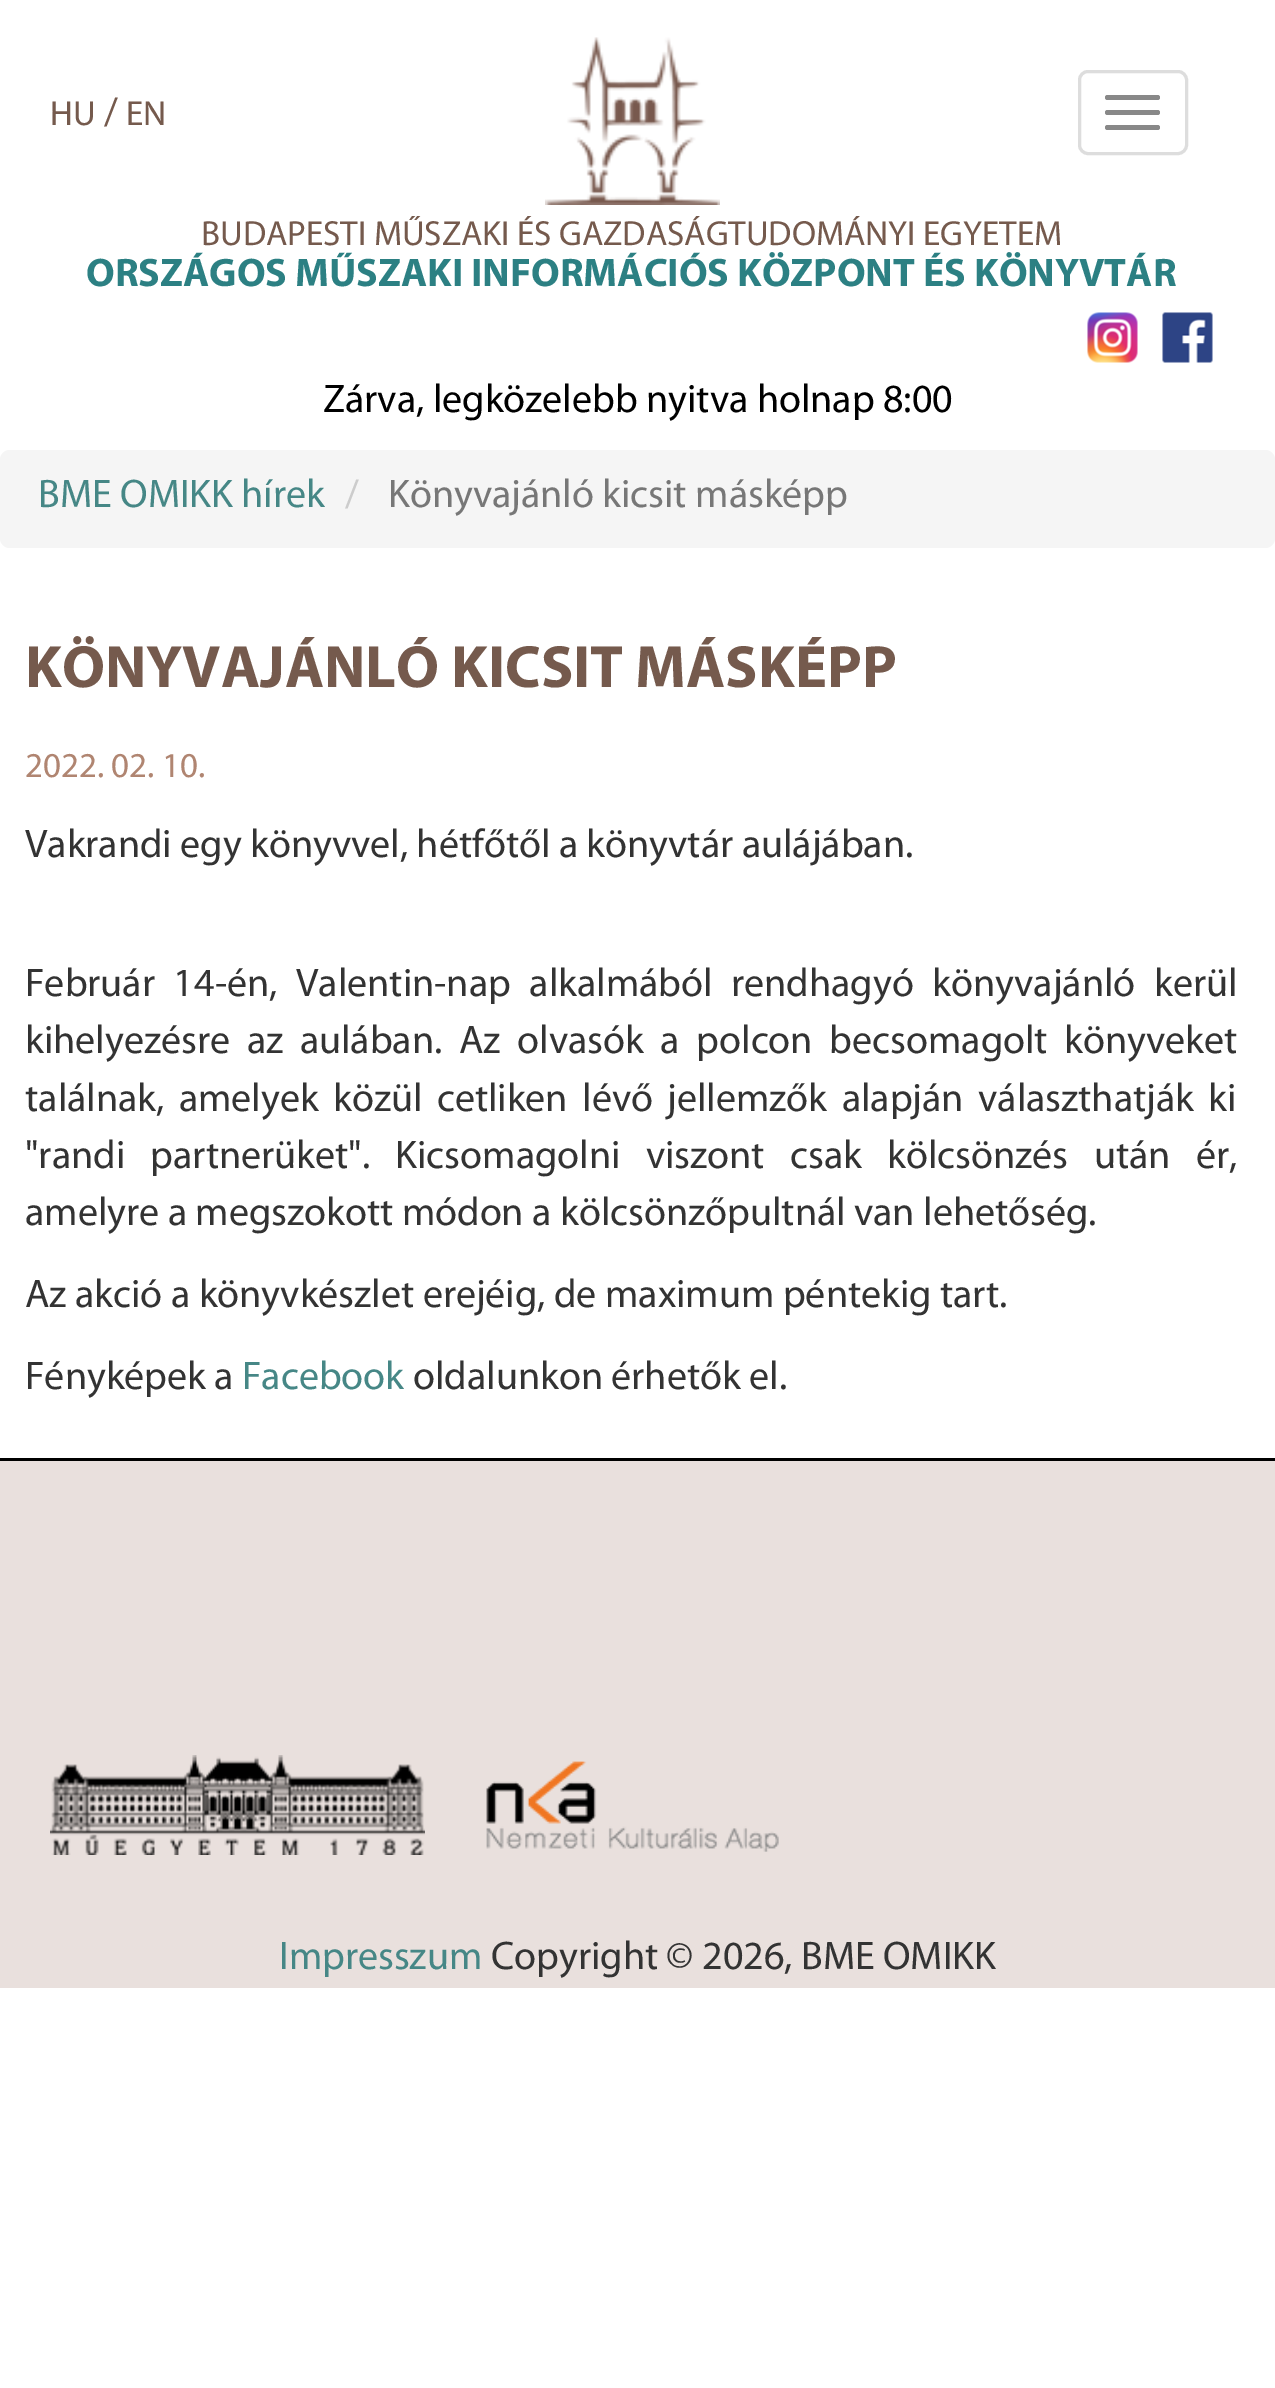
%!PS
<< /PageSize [1275 2388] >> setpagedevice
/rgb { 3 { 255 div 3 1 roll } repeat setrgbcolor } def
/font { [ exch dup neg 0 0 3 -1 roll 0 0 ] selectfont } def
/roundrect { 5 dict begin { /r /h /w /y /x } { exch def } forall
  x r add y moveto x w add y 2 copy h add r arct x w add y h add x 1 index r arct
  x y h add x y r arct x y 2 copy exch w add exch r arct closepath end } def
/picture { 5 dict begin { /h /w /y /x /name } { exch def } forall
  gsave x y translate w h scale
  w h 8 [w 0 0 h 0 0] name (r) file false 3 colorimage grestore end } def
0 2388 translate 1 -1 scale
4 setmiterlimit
255 255 255 rgb
0 0 1275 2388 rectfill
221 221 221 rgb
3 setlinewidth
1079.5 71.5 107 82 8.5 roundrect stroke
136 136 136 rgb
1105 95 55 5 2.5 roundrect fill
1105 110 55 5 2.5 roundrect fill
1105 125 55 5 2.5 roundrect fill
(img/1.rgb) 545 37 175 168 picture
(img/2.rgb) 1087 312 51 51 picture
(img/3.rgb) 1162 312 51 51 picture
245 245 245 rgb
0 450 1275 98 10 roundrect fill
233 224 221 rgb
0 1461 1275 527 rectfill
0 0 0 rgb
0 1458 1275 3 rectfill
(img/4.rgb) 50 1755 375 100 picture
(img/5.rgb) 486 1761 293 91 picture
/Myriad-Regular 35 font
117 90 77 rgb
50 125 moveto (HU) show
/Myriad-Regular 40 font
104 125 moveto (/) show
/Myriad-Regular 35 font
126 125 moveto (EN) show
201 245 moveto (BUDAPESTI MŰSZAKI ÉS GAZDASÁGTUDOMÁNYI EGYETEM) show
/Myriad-Bold 40 font
44 128 131 rgb
86 286 moveto (ORSZÁGOS MŰSZAKI INFORMÁCIÓS KÖZPONT ÉS KÖNYVTÁR) show
/Myriad-Regular 40 font
0 0 0 rgb
323 412 moveto (Zárva, legközelebb nyitva holnap 8:00) show
70 135 134 rgb
38 507 moveto (BME OMIKK hírek) show
204 204 204 rgb
345 507 moveto (/) show
119 119 119 rgb
388 507 moveto (Könyvajánló kicsit másképp) show
/Myriad-Bold 60 font
117 90 77 rgb
25 687 moveto (KÖNYVAJÁNLÓ KICSIT MÁSKÉPP) show
/Myriad-Regular 35 font
176 133 113 rgb
25 777 moveto (2022. 02. 10.) show
/Myriad-Regular 40 font
51 51 51 rgb
25 857 moveto (Vakrandi egy könyvvel, hétfőtől a könyvtár aulájában.) show
25 996 moveto 10.25 0 32 (Február 14-én, Valentin-nap alkalmából rendhagyó könyvajánló kerül) widthshow
25 1053 moveto 8.25 0 32 (kihelyezésre az aulában. Az olvasók a polcon becsomagolt könyveket) widthshow
25 1111 moveto 6 0 32 (találnak, amelyek közül cetliken lévő jellemzők alapján választhatják ki) widthshow
25 1168 moveto 17 0 32 ("randi partnerüket". Kicsomagolni viszont csak kölcsönzés után ér,) widthshow
[
  [(amelyre a megszokott módon a kölcsönzőpultnál van lehetőség.) 25 1225]
  [(Az akció a könyvkészlet erejéig, de maximum péntekig tart.) 25 1307]
  [(Fényképek a) 25 1389]
] { aload pop moveto show } forall
70 135 134 rgb
242 1389 moveto (Facebook) show
51 51 51 rgb
413 1389 moveto (oldalunkon érhetők el.) show
70 135 134 rgb
279 1969 moveto (Impresszum) show
51 51 51 rgb
491 1969 moveto (Copyright © 2026, BME OMIKK) show
showpage
